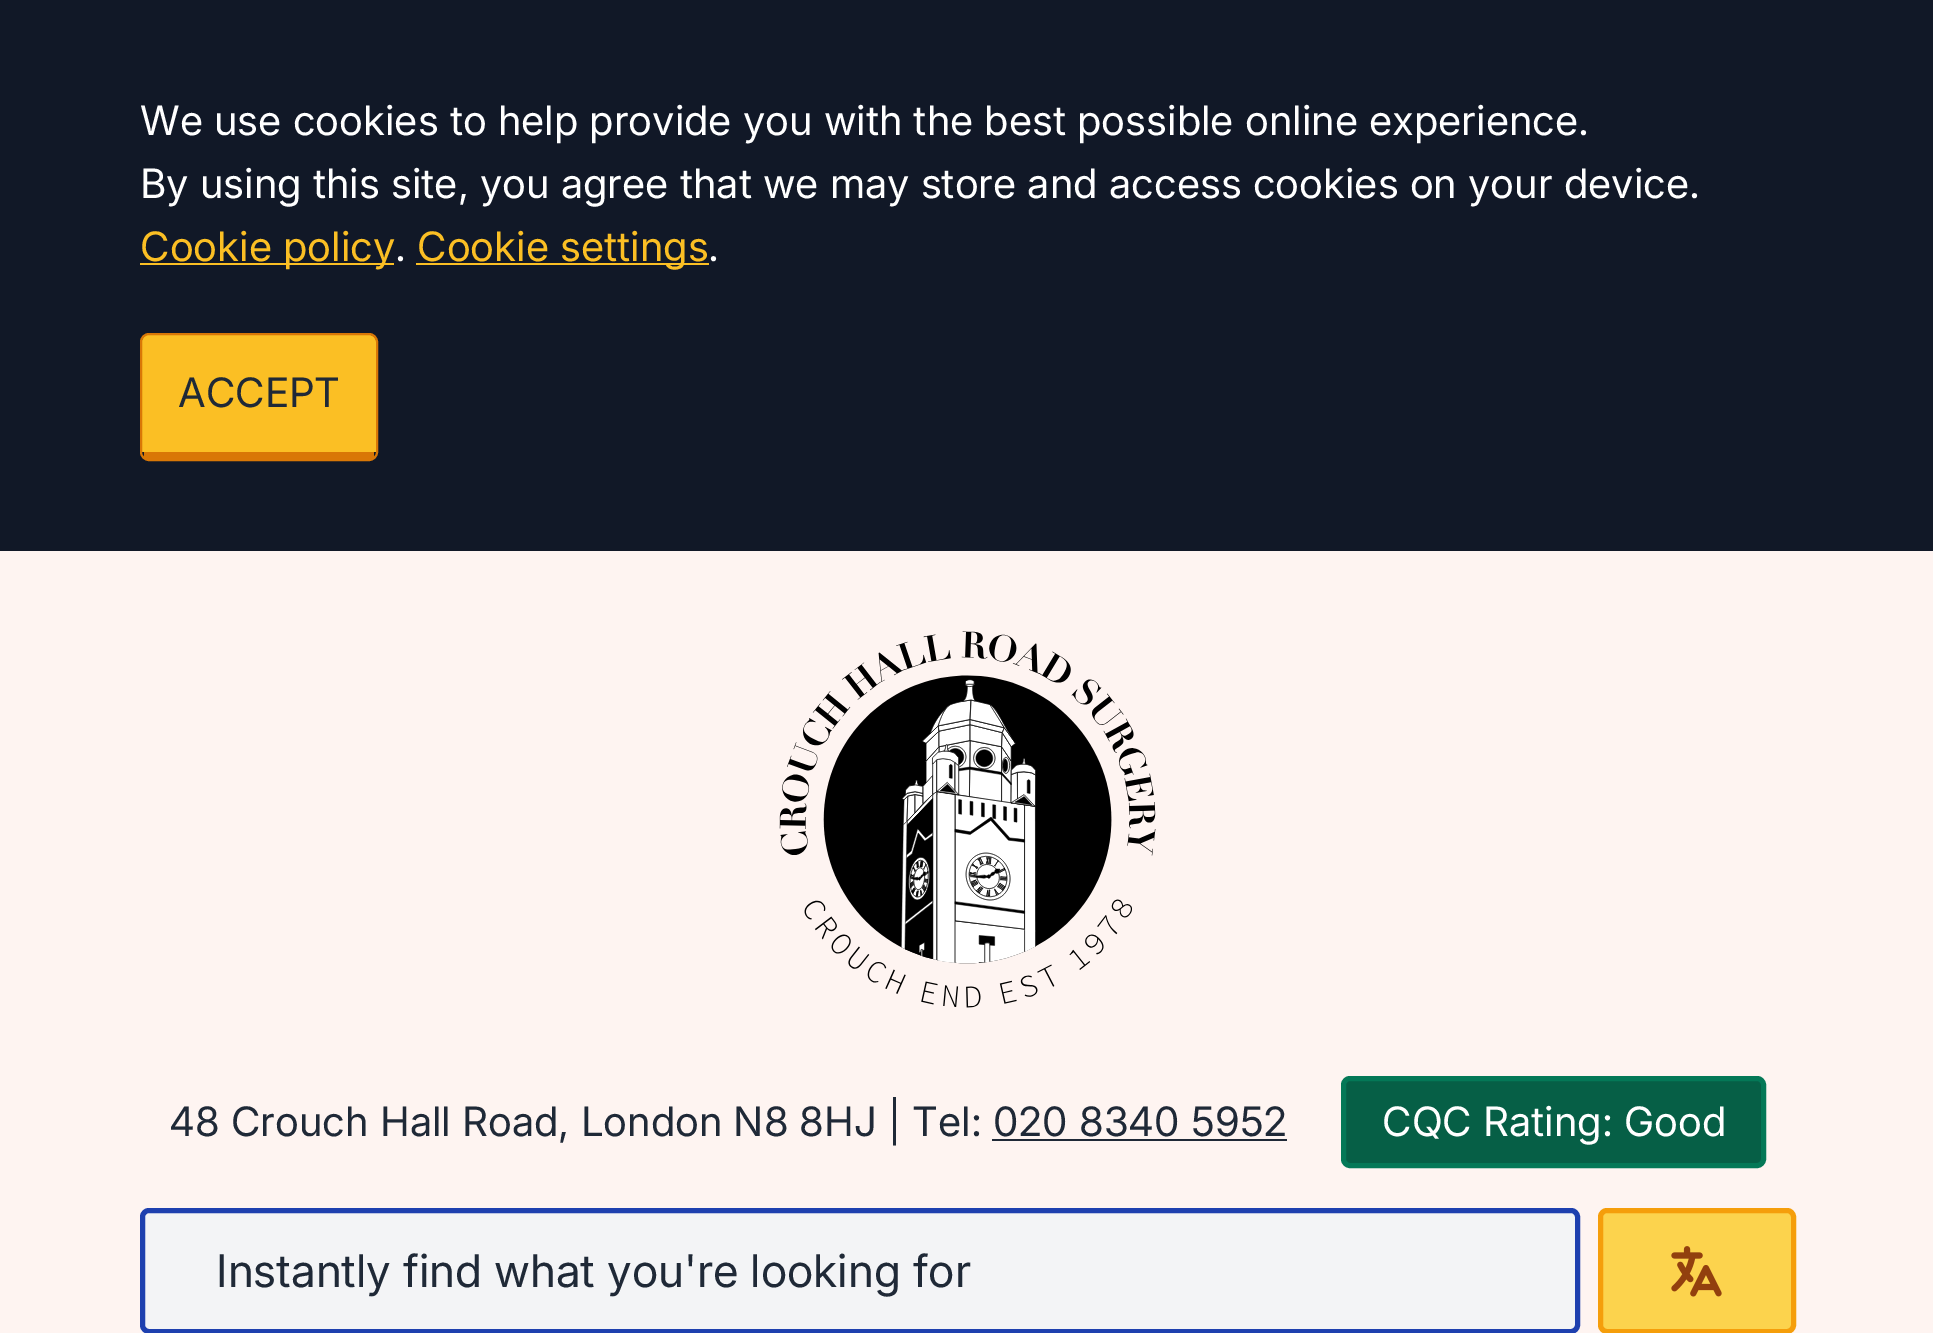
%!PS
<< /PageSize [1933 1333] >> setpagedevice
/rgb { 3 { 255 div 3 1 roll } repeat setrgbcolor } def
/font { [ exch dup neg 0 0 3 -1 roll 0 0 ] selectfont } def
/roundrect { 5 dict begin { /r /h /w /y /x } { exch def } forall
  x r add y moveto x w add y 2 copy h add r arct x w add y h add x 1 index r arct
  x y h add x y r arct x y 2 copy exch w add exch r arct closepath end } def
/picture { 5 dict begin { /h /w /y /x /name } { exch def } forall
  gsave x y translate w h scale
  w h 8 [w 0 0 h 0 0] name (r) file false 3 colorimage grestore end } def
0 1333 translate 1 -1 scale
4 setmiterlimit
17 24 39 rgb
0 0 1933 1333 rectfill
251 191 36 rgb
140 263 254 2 rectfill
416 263 293 2 rectfill
148 335 moveto 369 335 lineto 373 335 376 338 376 342 curveto 376 452 lineto 142 452 lineto 142 342 lineto 142 338 145 335 148 335 curveto closepath fill
217 119 6 rgb
2 setlinewidth
141 334 236 126 8 roundrect stroke
144 452 230 7 rectfill
254 244 241 rgb
0 551 1933 782 rectfill
(img/1.rgb) 779 631 377 377 picture
31 41 55 rgb
992 1139 295 2 rectfill
6 95 70 rgb
1343.5 1078.5 420 87 6.5 roundrect gsave fill grestore
4 120 87 rgb
5 setlinewidth
stroke
243 244 246 rgb
142.5 1210.5 1435 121 6.5 roundrect gsave fill grestore
30 64 175 rgb
stroke
252 211 77 rgb
1600.5 1210.5 193 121 6.5 roundrect gsave fill grestore
245 158 11 rgb
stroke
(img/2.rgb) 1671 1246 51 51 picture
/Inter-Regular 40.5 font
255 255 255 rgb
140 135 moveto (We use cookies to help provide you with the best possible online experience.) show
140 198 moveto (By using this site, you agree that we may store and access cookies on your device.) show
251 191 36 rgb
140 261 moveto (Cookie policy) show
255 255 255 rgb
395 261 moveto (.) show
251 191 36 rgb
417 261 moveto (Cookie settings) show
255 255 255 rgb
708 261 moveto (.) show
31 41 55 rgb
178 407 moveto (ACCEPT) show
169 1136 moveto (48 Crouch Hall Road, London N8 8HJ | Tel: 020 8340 5952) show
255 255 255 rgb
1382 1136 moveto (CQC Rating: Good) show
/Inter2-Regular 45 font
31 41 55 rgb
216 1287 moveto (Instantly find what you're looking for) show
showpage
